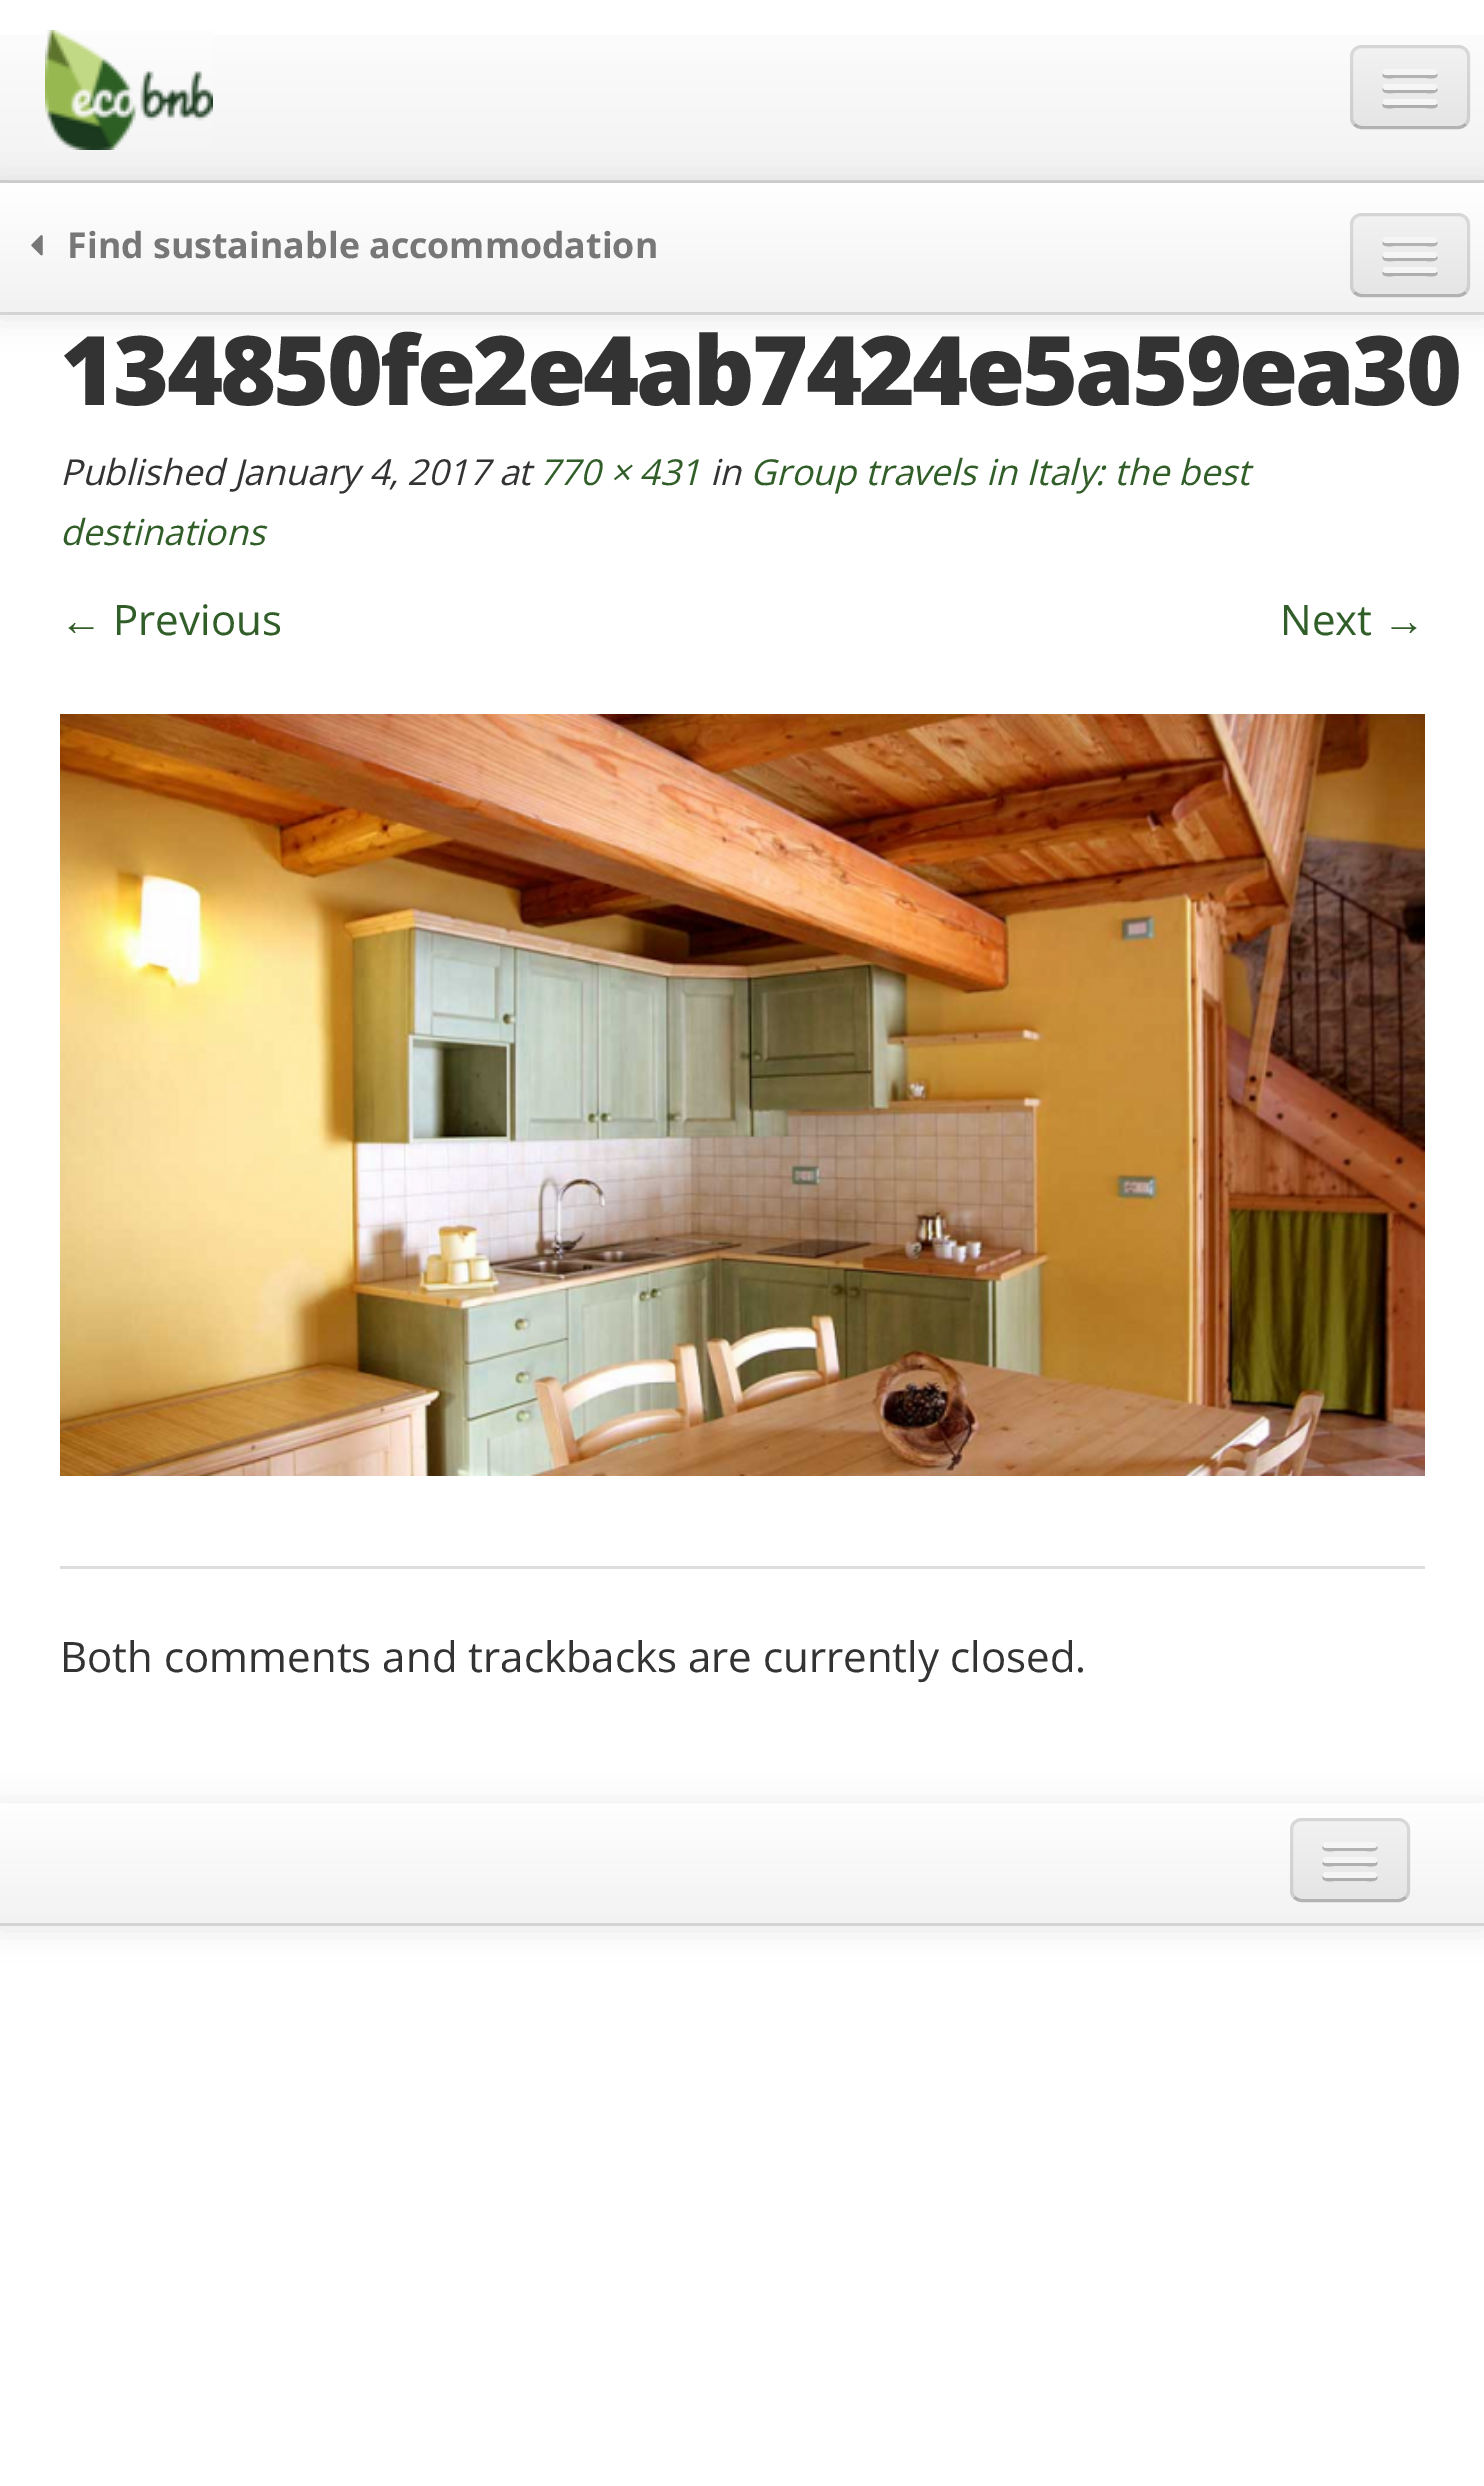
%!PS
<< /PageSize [1484 2486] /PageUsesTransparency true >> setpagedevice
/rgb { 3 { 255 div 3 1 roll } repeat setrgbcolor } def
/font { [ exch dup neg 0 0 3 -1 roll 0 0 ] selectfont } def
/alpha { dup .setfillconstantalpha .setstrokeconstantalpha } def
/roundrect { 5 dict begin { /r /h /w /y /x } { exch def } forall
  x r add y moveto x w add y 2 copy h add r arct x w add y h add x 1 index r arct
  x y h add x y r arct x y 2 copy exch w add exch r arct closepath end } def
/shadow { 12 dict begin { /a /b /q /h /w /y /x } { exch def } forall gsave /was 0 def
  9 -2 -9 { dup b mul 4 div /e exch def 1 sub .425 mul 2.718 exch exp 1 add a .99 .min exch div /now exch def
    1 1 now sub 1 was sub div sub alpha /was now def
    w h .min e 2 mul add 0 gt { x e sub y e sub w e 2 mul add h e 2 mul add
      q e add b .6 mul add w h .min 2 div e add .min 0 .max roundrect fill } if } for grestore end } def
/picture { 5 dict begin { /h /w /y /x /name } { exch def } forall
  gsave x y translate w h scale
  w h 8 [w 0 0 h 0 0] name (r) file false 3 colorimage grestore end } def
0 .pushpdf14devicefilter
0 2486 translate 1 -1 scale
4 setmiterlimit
255 255 255 rgb
0 0 1484 2486 rectfill
gsave 0 35 moveto 1484 35 lineto 1484 180 lineto 0 180 lineto closepath clip newpath
<< /ShadingType 2 /ColorSpace /DeviceRGB /Coords [743 0 743 180] /Extend [true true] /Function << /FunctionType 2 /Domain [0 1] /C0 [1 1 1] /C1 [0.949 0.949 0.949] /N 1 >> >> shfill grestore
212 212 212 rgb
0 180 1484 3 rectfill
0 0 0 rgb
0 186 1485 132 0 15 0.1 shadow
(img/1.rgb) 45 30 168 120 picture
237 237 237 rgb
1350 45 120 84 12 roundrect fill
gsave
1350 45 120 84 12 roundrect clip newpath
gsave 1350 48 moveto 1470 48 lineto 1470 126 lineto 1350 126 lineto closepath clip newpath
<< /ShadingType 2 /ColorSpace /DeviceRGB /Coords [1410 48 1410 126] /Extend [true true] /Function << /FunctionType 2 /Domain [0 1] /C0 [0.949 0.949 0.949] /C1 [0.898 0.898 0.898] /N 1 >> >> shfill grestore
grestore
0.25 alpha
0 0 0 rgb
3 setlinewidth
1465.5 124.5 moveto 1463.5 126.5 1461 127.5 1458 127.5 curveto 1362 127.5 lineto 1359 127.5 1356.5 126.5 1354.5 124.5 curveto stroke
0.1 alpha
1354.5 124.5 moveto 1352.5 122.5 1351.5 120 1351.5 117 curveto 1351.5 57 lineto 1351.5 54 1352.5 51.5 1354.5 49.5 curveto 1356.5 47.5 1359 46.5 1362 46.5 curveto 1458 46.5 lineto 1461 46.5 1463.5 47.5 1465.5 49.5 curveto 1467.5 51.5 1468.5 54 1468.5 57 curveto 1468.5 117 lineto 1468.5 120 1467.5 122.5 1465.5 124.5 curveto stroke
1 alpha
178 178 178 rgb
1383 74 moveto 1380 80 1394 78 1394 78 curveto 1426 78 lineto 1426 78 1440 80 1437 74 curveto 1436 74 1435 75 1434 75 curveto 1386 75 lineto 1385 75 1384 74 1383 74 curveto closepath fill
245 245 245 rgb
1383 69 54 6 3 roundrect fill
176 176 176 rgb
1383 88 moveto 1380 95 1394 93 1394 93 curveto 1426 93 lineto 1426 93 1440 95 1437 88 curveto 1436 89 1435 90 1434 90 curveto 1386 90 lineto 1385 90 1384 89 1383 88 curveto closepath fill
245 245 245 rgb
1383 84 54 6 3 roundrect fill
174 174 174 rgb
1383 104 moveto 1380 110 1394 108 1394 108 curveto 1426 108 lineto 1426 108 1440 110 1437 104 curveto 1436 104 1435 105 1434 105 curveto 1386 105 lineto 1385 105 1384 104 1383 104 curveto closepath fill
245 245 245 rgb
1383 99 54 6 3 roundrect fill
gsave 0 183 moveto 1484 183 lineto 1484 312 lineto 0 312 lineto closepath clip newpath
<< /ShadingType 2 /ColorSpace /DeviceRGB /Coords [743 183 743 312] /Extend [true true] /Function << /FunctionType 2 /Domain [0 1] /C0 [1 1 1] /C1 [0.949 0.949 0.949] /N 1 >> >> shfill grestore
212 212 212 rgb
0 312 1484 3 rectfill
(img/2.rgb) 31 235 12 21 picture
237 237 237 rgb
1350 213 120 84 12 roundrect fill
gsave
1350 213 120 84 12 roundrect clip newpath
gsave 1350 216 moveto 1470 216 lineto 1470 294 lineto 1350 294 lineto closepath clip newpath
<< /ShadingType 2 /ColorSpace /DeviceRGB /Coords [1410 216 1410 294] /Extend [true true] /Function << /FunctionType 2 /Domain [0 1] /C0 [0.949 0.949 0.949] /C1 [0.898 0.898 0.898] /N 1 >> >> shfill grestore
grestore
0.25 alpha
0 0 0 rgb
1465.5 292.5 moveto 1463.5 294.5 1461 295.5 1458 295.5 curveto 1362 295.5 lineto 1359 295.5 1356.5 294.5 1354.5 292.5 curveto stroke
0.1 alpha
1354.5 292.5 moveto 1352.5 290.5 1351.5 288 1351.5 285 curveto 1351.5 225 lineto 1351.5 222 1352.5 219.5 1354.5 217.5 curveto 1356.5 215.5 1359 214.5 1362 214.5 curveto 1458 214.5 lineto 1461 214.5 1463.5 215.5 1465.5 217.5 curveto 1467.5 219.5 1468.5 222 1468.5 225 curveto 1468.5 285 lineto 1468.5 288 1467.5 290.5 1465.5 292.5 curveto stroke
1 alpha
178 178 178 rgb
1383 242 moveto 1380 248 1394 246 1394 246 curveto 1426 246 lineto 1426 246 1440 248 1437 242 curveto 1436 242 1435 243 1434 243 curveto 1386 243 lineto 1385 243 1384 242 1383 242 curveto closepath fill
245 245 245 rgb
1383 237 54 6 3 roundrect fill
176 176 176 rgb
1383 256 moveto 1380 263 1394 261 1394 261 curveto 1426 261 lineto 1426 261 1440 263 1437 256 curveto 1436 257 1435 258 1434 258 curveto 1386 258 lineto 1385 258 1384 257 1383 256 curveto closepath fill
245 245 245 rgb
1383 252 54 6 3 roundrect fill
174 174 174 rgb
1383 272 moveto 1380 278 1394 276 1394 276 curveto 1426 276 lineto 1426 276 1440 278 1437 272 curveto 1436 272 1435 273 1434 273 curveto 1386 273 lineto 1385 273 1384 272 1383 272 curveto closepath fill
245 245 245 rgb
1383 267 54 6 3 roundrect fill
(img/3.rgb) 60 714 1365 762 picture
221 221 221 rgb
60 1566 1365 3 rectfill
0 0 0 rgb
0 1806 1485 123 0 15 0.1 shadow
gsave 0 1803 moveto 1484 1803 lineto 1484 1923 lineto 0 1923 lineto closepath clip newpath
<< /ShadingType 2 /ColorSpace /DeviceRGB /Coords [743 1803 743 1923] /Extend [true true] /Function << /FunctionType 2 /Domain [0 1] /C0 [1 1 1] /C1 [0.949 0.949 0.949] /N 1 >> >> shfill grestore
212 212 212 rgb
0 1923 1484 3 rectfill
237 237 237 rgb
1290 1818 120 84 12 roundrect fill
gsave
1290 1818 120 84 12 roundrect clip newpath
gsave 1290 1821 moveto 1410 1821 lineto 1410 1899 lineto 1290 1899 lineto closepath clip newpath
<< /ShadingType 2 /ColorSpace /DeviceRGB /Coords [1350 1821 1350 1899] /Extend [true true] /Function << /FunctionType 2 /Domain [0 1] /C0 [0.949 0.949 0.949] /C1 [0.898 0.898 0.898] /N 1 >> >> shfill grestore
grestore
0.25 alpha
0 0 0 rgb
1405.5 1897.5 moveto 1403.5 1899.5 1401 1900.5 1398 1900.5 curveto 1302 1900.5 lineto 1299 1900.5 1296.5 1899.5 1294.5 1897.5 curveto stroke
0.1 alpha
1294.5 1897.5 moveto 1292.5 1895.5 1291.5 1893 1291.5 1890 curveto 1291.5 1830 lineto 1291.5 1827 1292.5 1824.5 1294.5 1822.5 curveto 1296.5 1820.5 1299 1819.5 1302 1819.5 curveto 1398 1819.5 lineto 1401 1819.5 1403.5 1820.5 1405.5 1822.5 curveto 1407.5 1824.5 1408.5 1827 1408.5 1830 curveto 1408.5 1890 lineto 1408.5 1893 1407.5 1895.5 1405.5 1897.5 curveto stroke
1 alpha
178 178 178 rgb
1323 1846 moveto 1320 1853 1334 1851 1334 1851 curveto 1366 1851 lineto 1366 1851 1380 1853 1377 1846 curveto 1376 1847 1375 1848 1374 1848 curveto 1326 1848 lineto 1325 1848 1324 1847 1323 1846 curveto closepath fill
245 245 245 rgb
1323 1842 54 6 3 roundrect fill
176 176 176 rgb
1323 1862 moveto 1320 1868 1334 1866 1334 1866 curveto 1366 1866 lineto 1366 1866 1380 1868 1377 1862 curveto 1376 1862 1375 1863 1374 1863 curveto 1326 1863 lineto 1325 1863 1324 1862 1323 1862 curveto closepath fill
245 245 245 rgb
1323 1857 54 6 3 roundrect fill
174 174 174 rgb
1323 1876 moveto 1320 1883 1334 1881 1334 1881 curveto 1366 1881 lineto 1366 1881 1380 1883 1377 1876 curveto 1376 1877 1375 1878 1374 1878 curveto 1326 1878 lineto 1325 1878 1324 1877 1323 1876 curveto closepath fill
245 245 245 rgb
1323 1872 54 6 3 roundrect fill
/OpenSans-Bold 35.75 font
119 119 119 rgb
67 258 moveto (Find sustainable accommodation) show
/OpenSans-ExtraBold 96 font
51 51 51 rgb
60 405 moveto -2.9 0 (134850fe2e4ab7424e5a59ea30) ashow
/OpenSans-Italic 35.75 font
60 485 moveto (Published January 4, 2017 at) show
49 94 40 rgb
539 485 moveto (770 × 431) show
51 51 51 rgb
710 485 moveto (in) show
49 94 40 rgb
750 485 moveto (Group travels in Italy: the best) show
60 545 moveto (destinations) show
/LiberationSans-Regular 42 font
60 635 moveto (←) show
/OpenSans-Regular 42 font
113 635 moveto (Previous) show
1280 635 moveto (Next) show
/LiberationSans-Regular 42 font
1383 635 moveto (→) show
/OpenSans-Regular 42 font
51 51 51 rgb
60 1672 moveto (Both comments and trackbacks are currently closed.) show
.poppdf14devicefilter showpage
